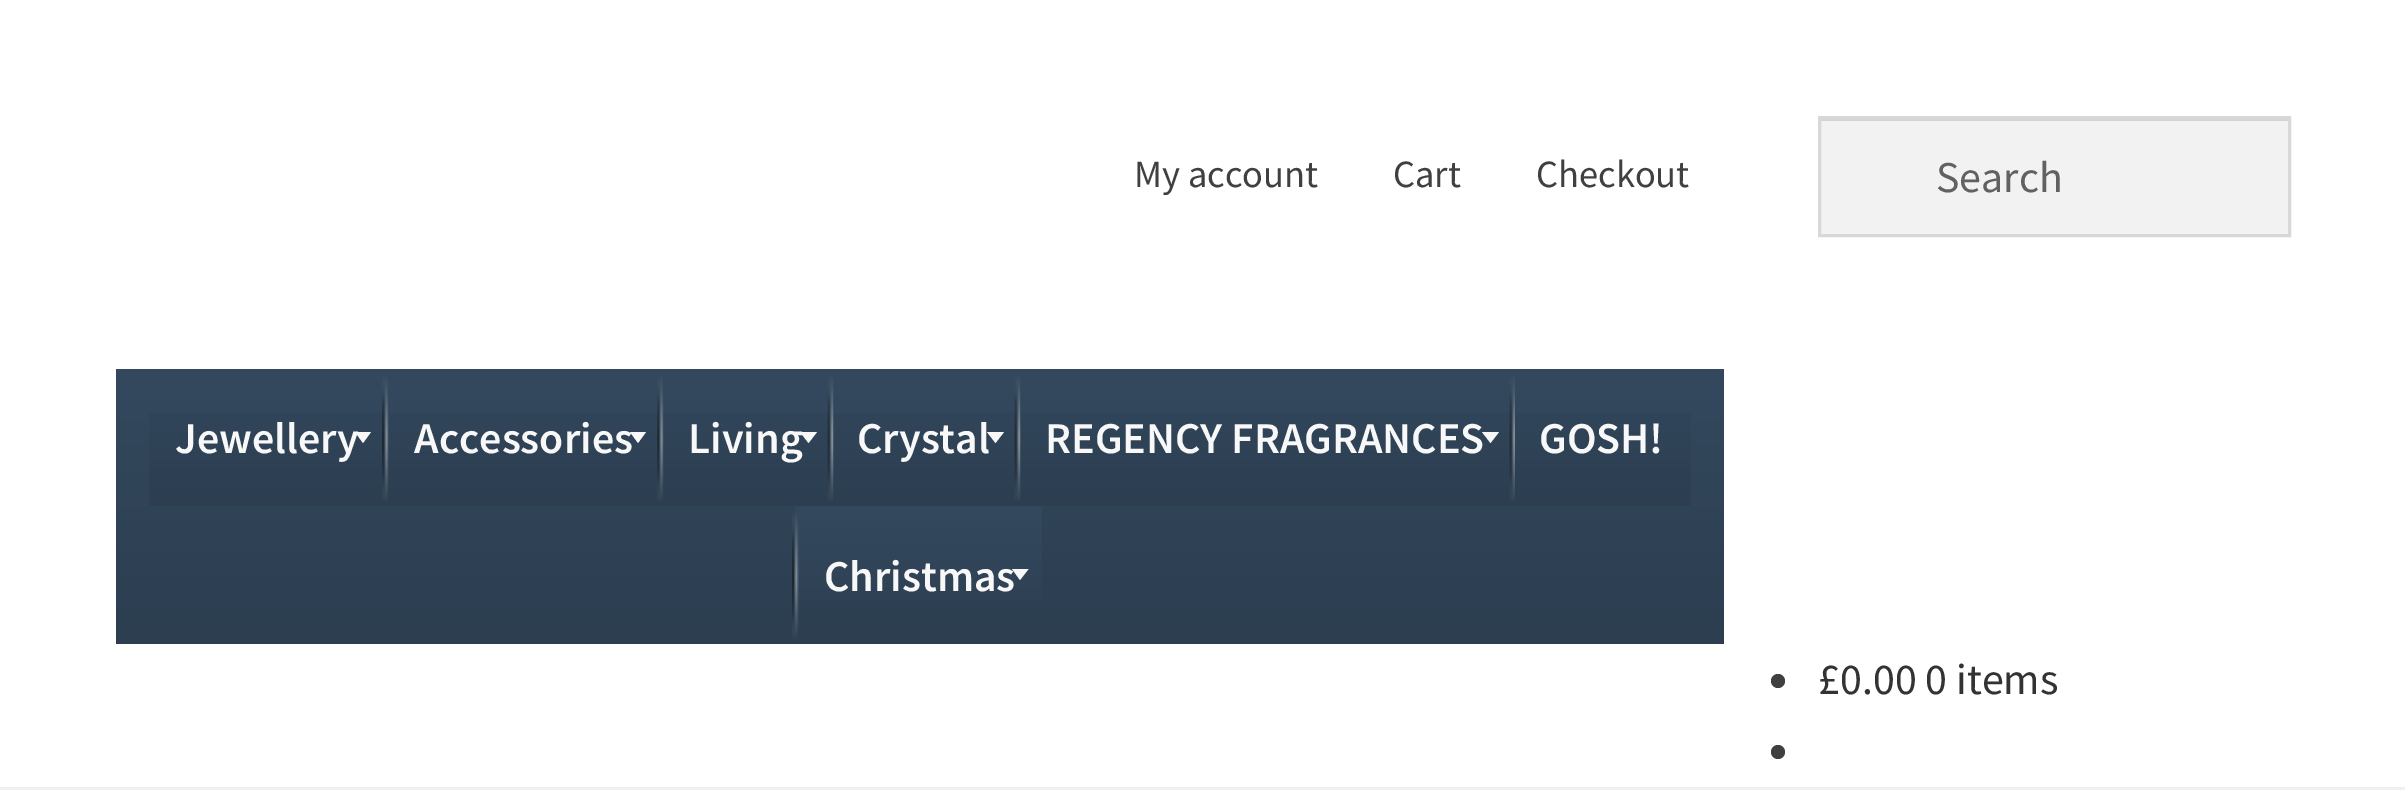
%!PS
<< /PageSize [2405 812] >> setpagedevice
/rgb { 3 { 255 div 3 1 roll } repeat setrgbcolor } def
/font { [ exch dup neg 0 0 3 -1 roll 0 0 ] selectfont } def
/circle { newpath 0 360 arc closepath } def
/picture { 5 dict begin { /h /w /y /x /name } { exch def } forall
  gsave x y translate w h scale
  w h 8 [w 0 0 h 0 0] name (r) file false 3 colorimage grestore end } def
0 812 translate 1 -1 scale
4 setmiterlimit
255 255 255 rgb
0 0 2405 812 rectfill
[
  [0 787 2405 3 240 240 240]
  [1821 121 467 113 242 242 242]
  [1821 119 467 2 212 212 212]
] { aload pop rgb rectfill } forall
216 216 216 rgb
3 setlinewidth
1819.5 117.5 470 118 rectstroke
gsave 116 369 moveto 1724 369 lineto 1724 644 lineto 116 644 lineto closepath clip newpath
<< /ShadingType 2 /ColorSpace /DeviceRGB /Coords [920 368 920 644] /Extend [true true] /Function << /FunctionType 2 /Domain [0 1] /C0 [0.204 0.286 0.369] /C1 [0.173 0.243 0.314] /N 1 >> >> shfill grestore
gsave 149 413 moveto 385 413 lineto 385 506 lineto 149 506 lineto closepath clip newpath
<< /ShadingType 2 /ColorSpace /DeviceRGB /Coords [267 369 267 506] /Extend [true true] /Function << /FunctionType 2 /Domain [0 1] /C0 [0.204 0.286 0.369] /C1 [0.173 0.243 0.314] /N 1 >> >> shfill grestore
248 248 248 rgb
355 432 moveto 371 432 lineto 363 443 lineto closepath fill
gsave 385 413 moveto 660 413 lineto 660 506 lineto 385 506 lineto closepath clip newpath
<< /ShadingType 2 /ColorSpace /DeviceRGB /Coords [523 369 523 506] /Extend [true true] /Function << /FunctionType 2 /Domain [0 1] /C0 [0.204 0.286 0.369] /C1 [0.173 0.243 0.314] /N 1 >> >> shfill grestore
(img/1.rgb) 382 377 7 124 picture
630 432 moveto 646 432 lineto 638 443 lineto closepath fill
gsave 660 413 moveto 831 413 lineto 831 506 lineto 660 506 lineto closepath clip newpath
<< /ShadingType 2 /ColorSpace /DeviceRGB /Coords [745 369 745 506] /Extend [true true] /Function << /FunctionType 2 /Domain [0 1] /C0 [0.204 0.286 0.369] /C1 [0.173 0.243 0.314] /N 1 >> >> shfill grestore
(img/2.rgb) 657 377 7 124 picture
800 432 moveto 817 432 lineto 808.5 443 lineto closepath fill
gsave 831 413 moveto 1018 413 lineto 1018 506 lineto 831 506 lineto closepath clip newpath
<< /ShadingType 2 /ColorSpace /DeviceRGB /Coords [924 369 924 506] /Extend [true true] /Function << /FunctionType 2 /Domain [0 1] /C0 [0.204 0.286 0.369] /C1 [0.173 0.243 0.314] /N 1 >> >> shfill grestore
(img/3.rgb) 827 377 7 124 picture
987 432 moveto 1004 432 lineto 995.5 443 lineto closepath fill
gsave 1018 413 moveto 1513 413 lineto 1513 506 lineto 1018 506 lineto closepath clip newpath
<< /ShadingType 2 /ColorSpace /DeviceRGB /Coords [1265 369 1265 506] /Extend [true true] /Function << /FunctionType 2 /Domain [0 1] /C0 [0.204 0.286 0.369] /C1 [0.173 0.243 0.314] /N 1 >> >> shfill grestore
(img/3.rgb) 1014 377 7 124 picture
1482 432 moveto 1499 432 lineto 1490.5 443 lineto closepath fill
gsave 1513 413 moveto 1691 413 lineto 1691 506 lineto 1513 506 lineto closepath clip newpath
<< /ShadingType 2 /ColorSpace /DeviceRGB /Coords [1602 369 1602 506] /Extend [true true] /Function << /FunctionType 2 /Domain [0 1] /C0 [0.204 0.286 0.369] /C1 [0.173 0.243 0.314] /N 1 >> >> shfill grestore
(img/4.rgb) 1509 377 6 124 picture
gsave 795 506 moveto 1042 506 lineto 1042 600 lineto 795 600 lineto closepath clip newpath
<< /ShadingType 2 /ColorSpace /DeviceRGB /Coords [919 506 919 644] /Extend [true true] /Function << /FunctionType 2 /Domain [0 1] /C0 [0.204 0.286 0.369] /C1 [0.173 0.243 0.314] /N 1 >> >> shfill grestore
(img/5.rgb) 792 514 7 125 picture
1012 569 moveto 1028.5 569 lineto 1020 580 lineto closepath fill
64 64 64 rgb
1778 681 7 circle fill
1778 752 7 circle fill
/SourceSansPro-Regular 38.5 font
[
  [(My account) 1134 187]
  [(Cart) 1393 187]
  [(Checkout) 1536 187]
] { aload pop moveto show } forall
/SourceSansPro-Regular 44 font
97 97 97 rgb
1936 192 moveto (Search) show
/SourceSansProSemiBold-SemiBold 44 font
248 248 248 rgb
[
  [(Jewellery) 175 453]
  [(Accessories) 414 453]
  [(Living) 688 453]
  [(Crystal) 857 453]
  [(REGENCY FRAGRANCES) 1045 453]
  [(GOSH!) 1539 453]
  [(Christmas) 824 591]
] { aload pop moveto show } forall
/SourceSansPro-Regular 44 font
51 51 51 rgb
1818 694 moveto (£0.00 0 items) show
showpage
